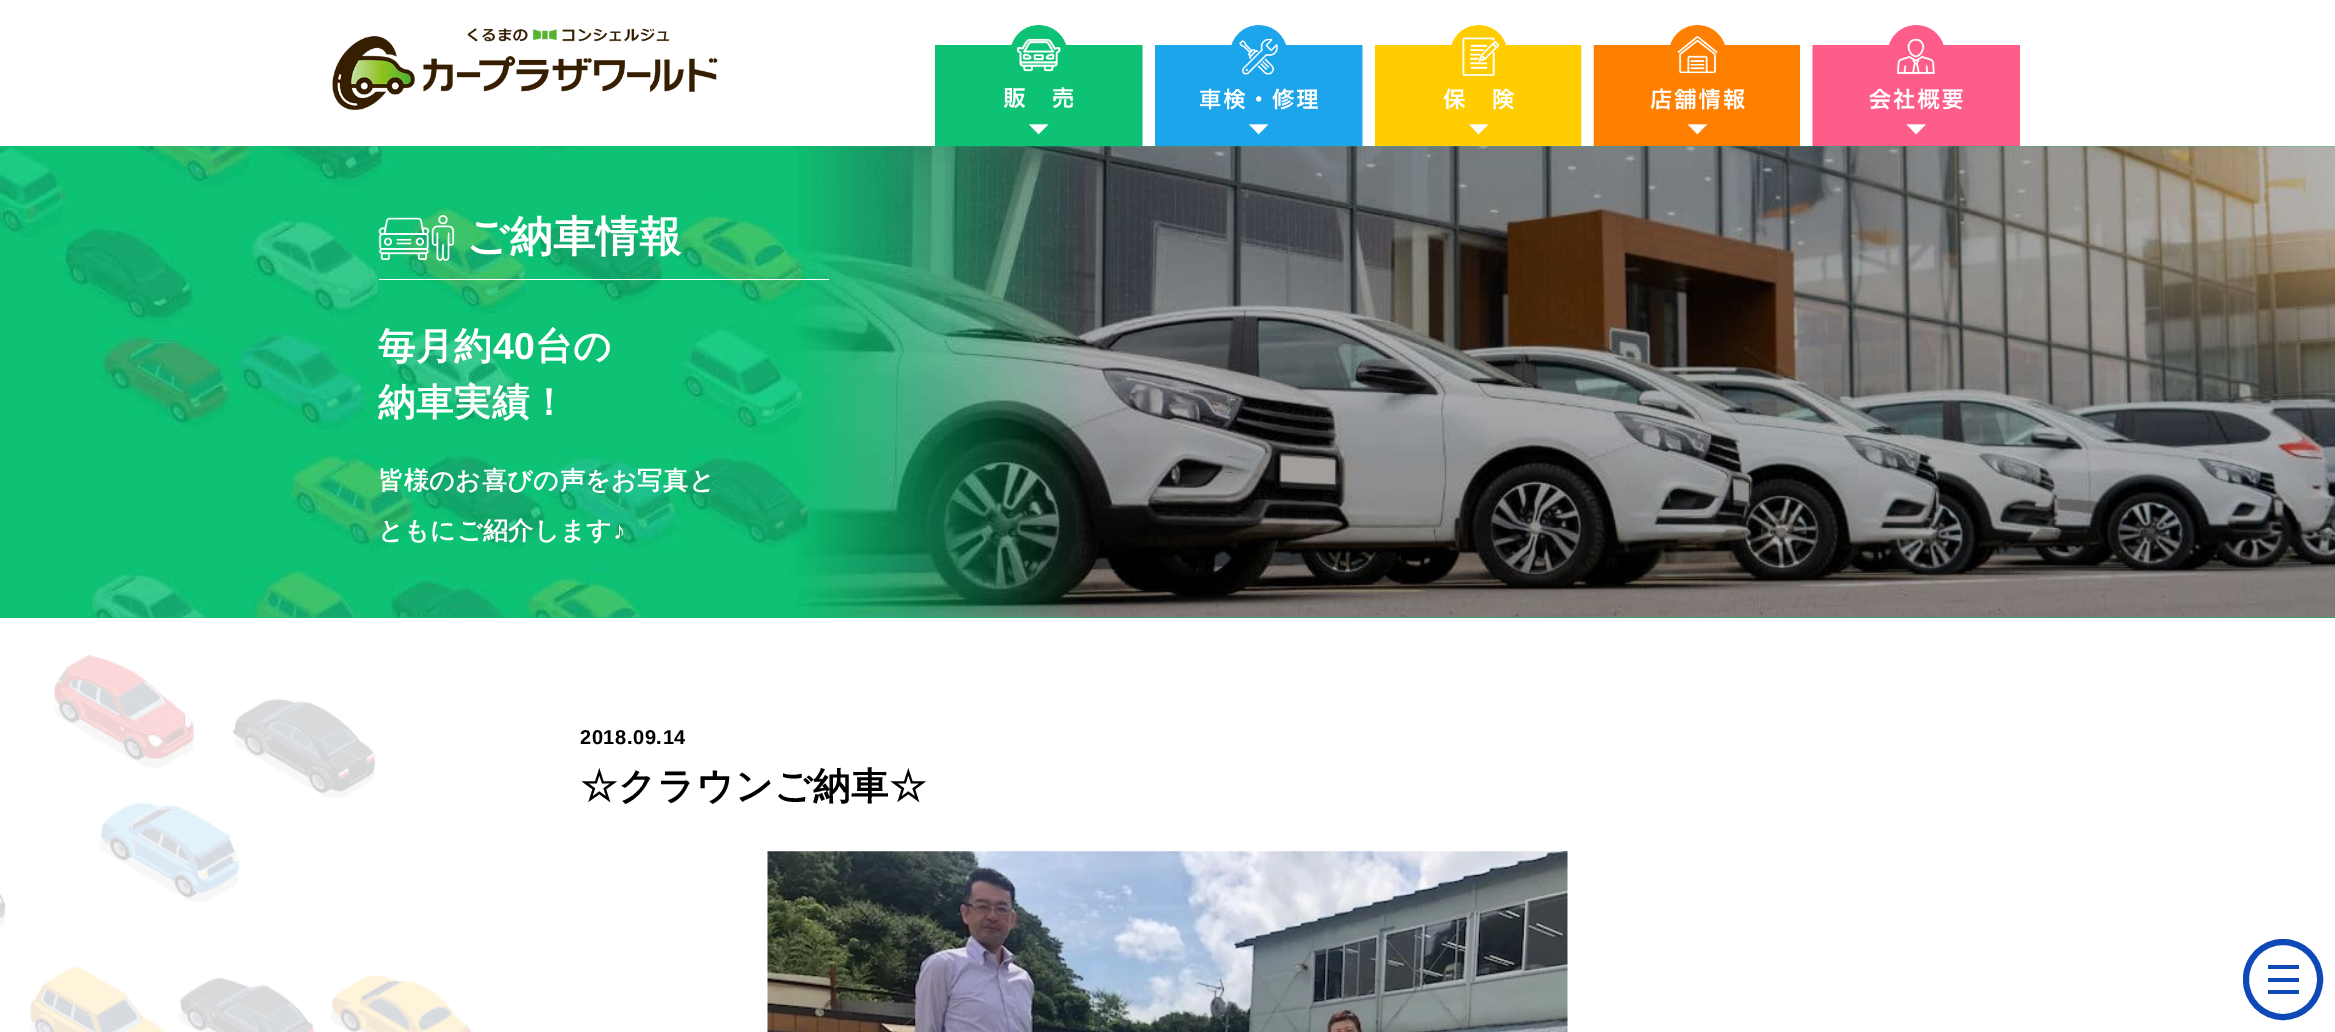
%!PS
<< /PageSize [2335 1032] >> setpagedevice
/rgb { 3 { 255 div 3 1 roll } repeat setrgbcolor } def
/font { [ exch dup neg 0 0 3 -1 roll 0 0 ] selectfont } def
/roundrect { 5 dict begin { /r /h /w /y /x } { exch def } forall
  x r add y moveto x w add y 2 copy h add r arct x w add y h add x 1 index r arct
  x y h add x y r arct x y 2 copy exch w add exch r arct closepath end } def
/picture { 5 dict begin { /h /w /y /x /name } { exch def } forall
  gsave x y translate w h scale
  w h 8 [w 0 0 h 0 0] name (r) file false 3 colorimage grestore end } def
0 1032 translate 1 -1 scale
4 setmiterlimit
255 255 255 rgb
0 0 2335 1032 rectfill
(img/1.rgb) 332 28 386 82 picture
(img/2.rgb) 935 25 208 121 picture
(img/3.rgb) 1155 25 208 121 picture
(img/4.rgb) 1375 25 207 121 picture
(img/5.rgb) 1593 25 207 121 picture
(img/6.rgb) 1812 25 208 121 picture
13 194 116 rgb
0 146 2335 472 rectfill
(img/7.rgb) 0 146 2335 472 picture
(img/8.rgb) 378 215 77 46 picture
255 255 255 rgb
379 279 450 1 rectfill
(img/9.rgb) 0 655 472 377 picture
(img/10.rgb) 767 851 801 181 picture
15 73 183 rgb
6 setlinewidth
2246 942 74 75 37 roundrect stroke
[
  [2268 965 31 4 15 73 183]
  [2268 978 31 4 15 73 183]
  [2268 990 31 4 15 73 183]
] { aload pop rgb rectfill } forall
/WenQuanYiZenHei-Bold 42.5 font
255 255 255 rgb
466 251 moveto 0.6 0 (ご納車情報) ashow
/WenQuanYiZenHei-Bold 37.5 font
378 359 moveto 0.6 0 (毎月約) ashow
/LiberationSans-Bold 37.5 font
493 359 moveto 0.6 0 (40) ashow
/WenQuanYiZenHei-Bold 37.5 font
535 359 moveto 0.6 0 (台の) ashow
378 415 moveto 0.6 0 (納車実績！) ashow
/WenQuanYiZenHei-Bold 25 font
378 489 moveto 0.6 0 (皆様のお喜びの声をお写真と) ashow
378 539 moveto 0.6 0 (ともにご紹介します) ashow
/LiberationSans-Bold 25 font
613 539 moveto 0.6 0 (♪) ashow
/LiberationSans-Bold 20 font
0 0 0 rgb
580 744 moveto 0.6 0 (2018.09.14) ashow
/WenQuanYiZenHei-Bold 37.5 font
580 799 moveto 0.6 0 (☆クラウンご納車☆) ashow
showpage
